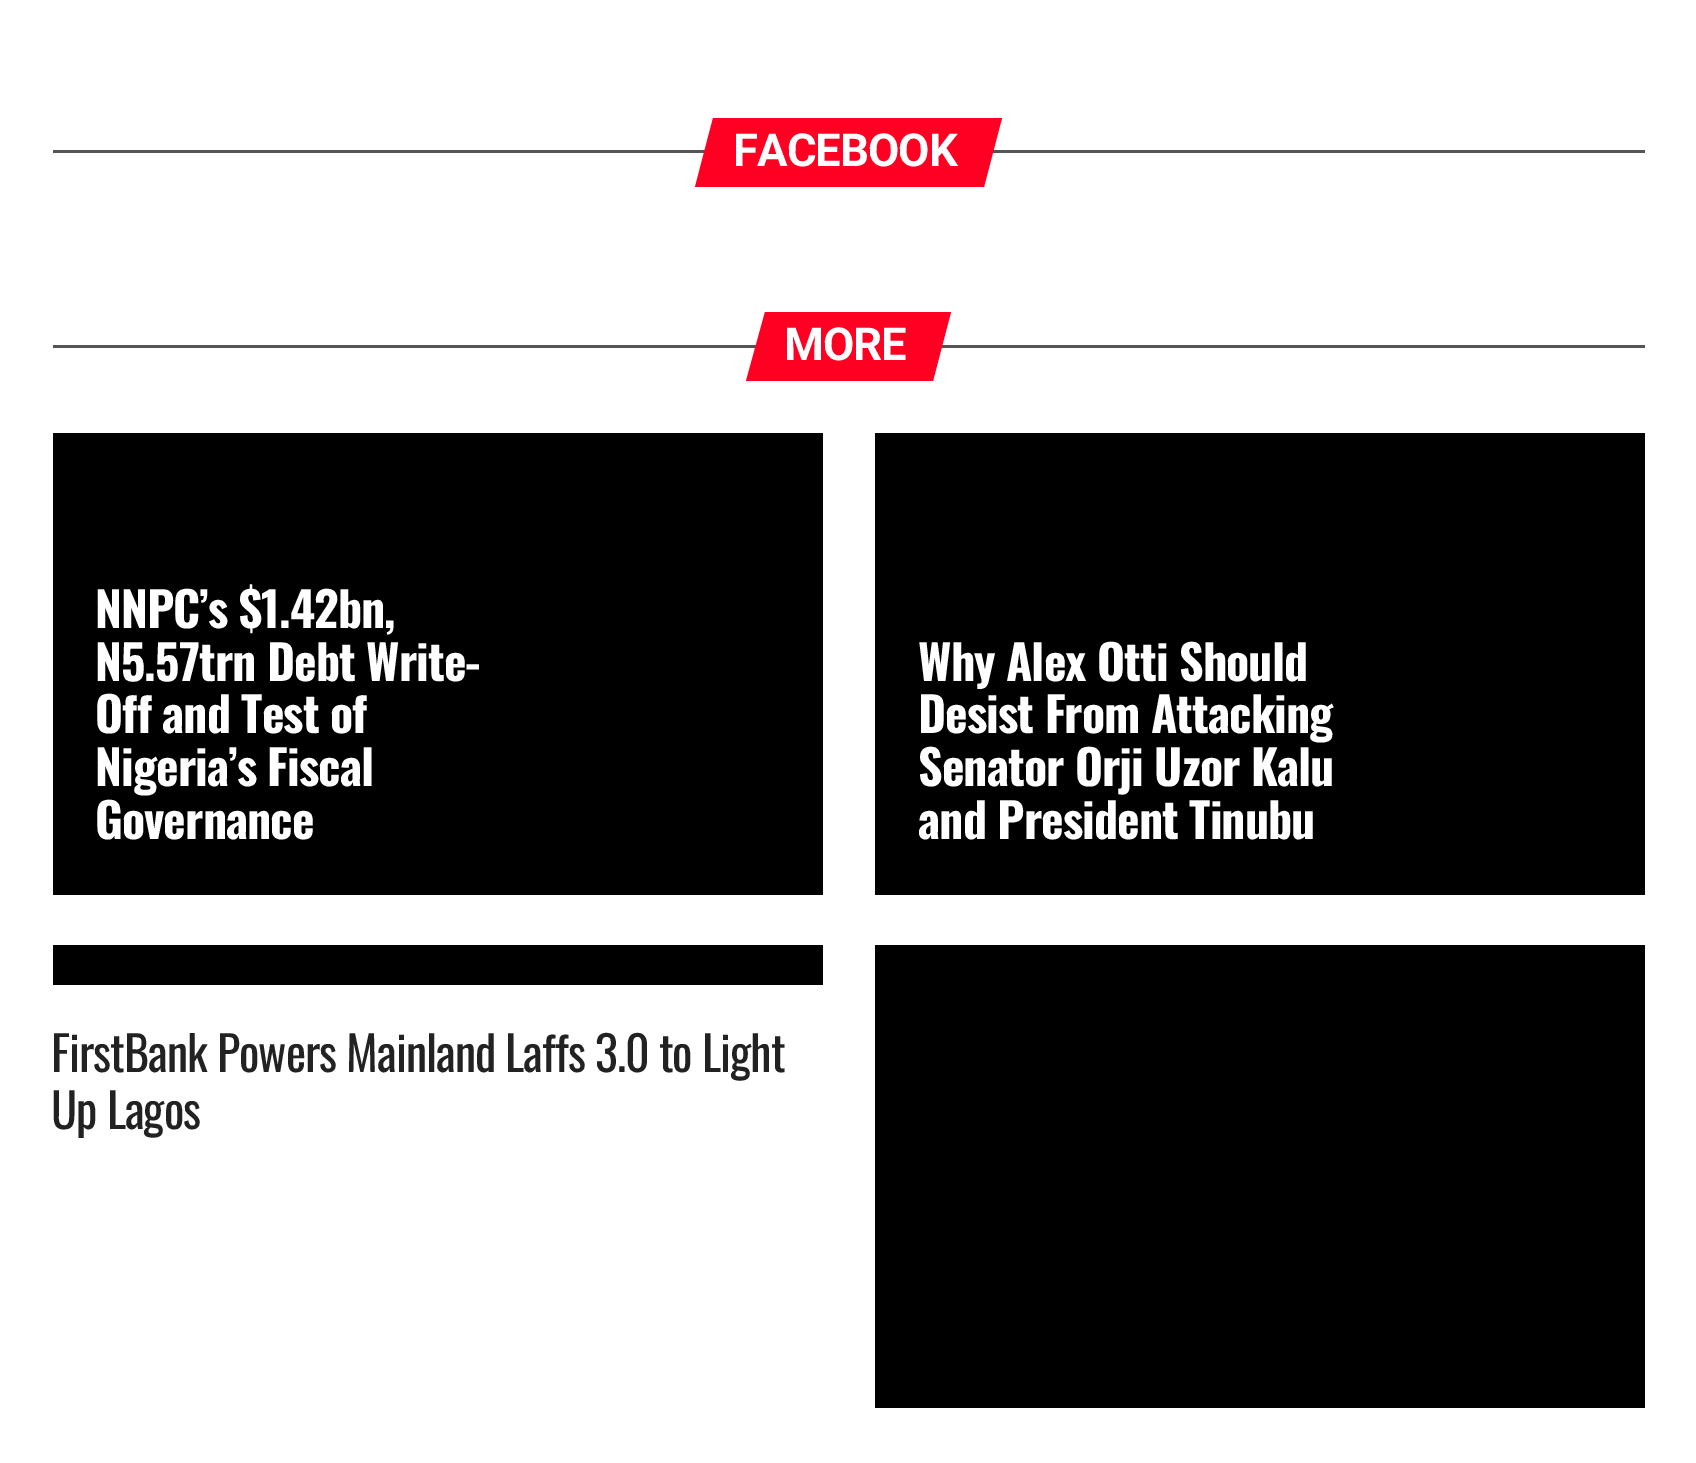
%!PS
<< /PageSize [1696 1463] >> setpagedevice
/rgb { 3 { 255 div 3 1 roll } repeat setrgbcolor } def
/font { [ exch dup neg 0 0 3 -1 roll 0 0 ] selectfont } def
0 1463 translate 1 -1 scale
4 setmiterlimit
255 255 255 rgb
0 0 1696 1463 rectfill
85 85 85 rgb
53 150 1592 3 rectfill
255 0 34 rgb
713 118 moveto 1002 118 lineto 984 187 lineto 695 187 lineto closepath fill
85 85 85 rgb
53 345 1592 3 rectfill
255 0 34 rgb
765 312 moveto 951 312 lineto 933 381 lineto 746 381 lineto closepath fill
[
  [53 433 770 462 0 0 0]
  [875 433 770 462 0 0 0]
  [53 945 770 40 0 0 0]
  [875 945 770 463 0 0 0]
] { aload pop rgb rectfill } forall
/Roboto-Bold 45.5 font
255 255 255 rgb
733 166 moveto -1 0 (FACEBOOK) ashow
784 360 moveto -1 0 (MORE) ashow
/Oswald-Bold 48 font
95 628 moveto -0.95 0 (NNPC’s $1.42bn,) ashow
95 681 moveto -0.95 0 (N5.57trn Debt Write-) ashow
95 733 moveto -0.95 0 (Off and Test of) ashow
95 786 moveto -0.95 0 (Nigeria’s Fiscal) ashow
95 839 moveto -0.95 0 (Governance) ashow
918 681 moveto -0.95 0 (Why Alex Otti Should) ashow
918 733 moveto -0.95 0 (Desist From Attacking) ashow
918 786 moveto -0.95 0 (Senator Orji Uzor Kalu) ashow
918 839 moveto -0.95 0 (and President Tinubu) ashow
/Oswald-Regular 48 font
34 34 34 rgb
51 1072 moveto -0.95 0 (FirstBank Powers Mainland Laffs 3.0 to Light) ashow
51 1129 moveto -0.95 0 (Up Lagos) ashow
showpage
